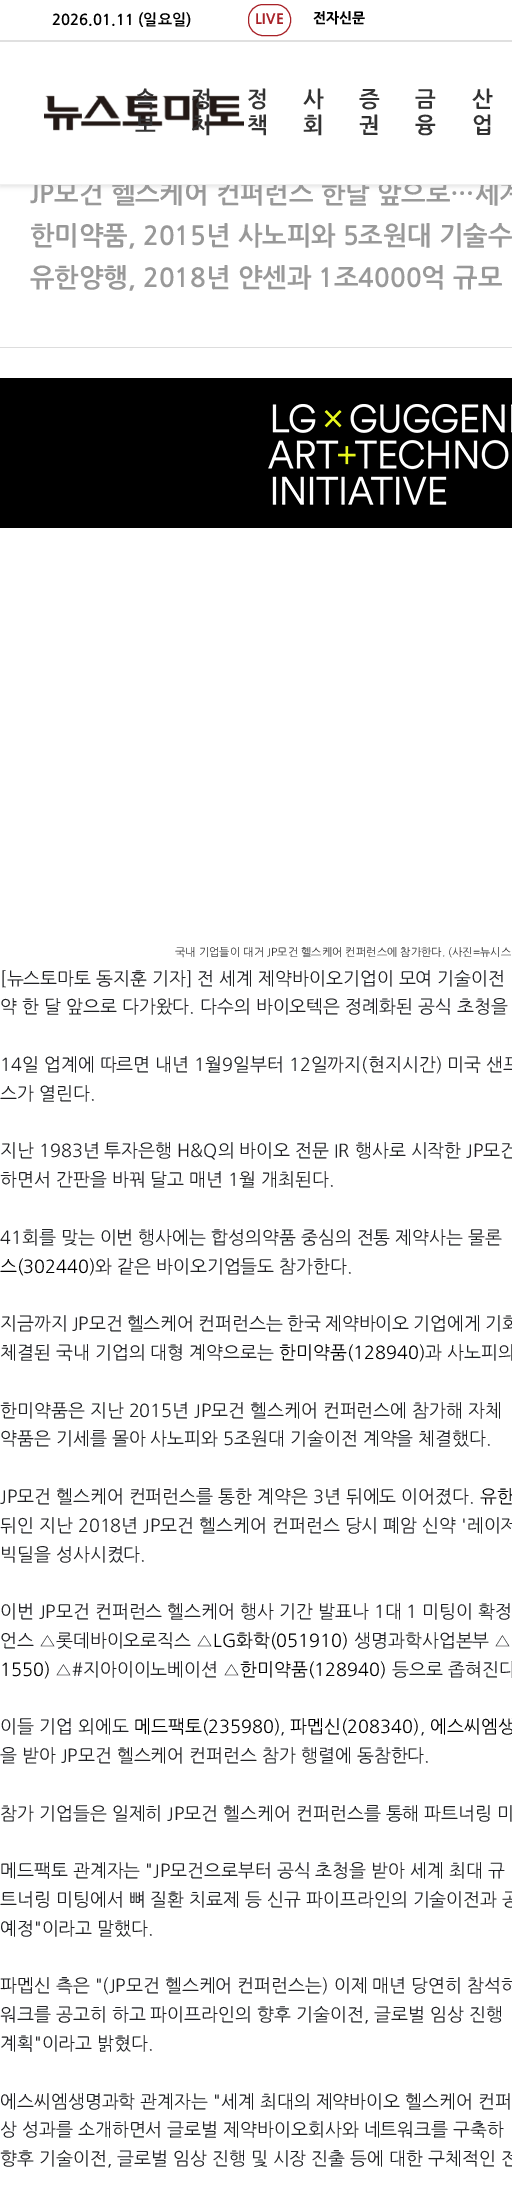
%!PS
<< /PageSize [512 2207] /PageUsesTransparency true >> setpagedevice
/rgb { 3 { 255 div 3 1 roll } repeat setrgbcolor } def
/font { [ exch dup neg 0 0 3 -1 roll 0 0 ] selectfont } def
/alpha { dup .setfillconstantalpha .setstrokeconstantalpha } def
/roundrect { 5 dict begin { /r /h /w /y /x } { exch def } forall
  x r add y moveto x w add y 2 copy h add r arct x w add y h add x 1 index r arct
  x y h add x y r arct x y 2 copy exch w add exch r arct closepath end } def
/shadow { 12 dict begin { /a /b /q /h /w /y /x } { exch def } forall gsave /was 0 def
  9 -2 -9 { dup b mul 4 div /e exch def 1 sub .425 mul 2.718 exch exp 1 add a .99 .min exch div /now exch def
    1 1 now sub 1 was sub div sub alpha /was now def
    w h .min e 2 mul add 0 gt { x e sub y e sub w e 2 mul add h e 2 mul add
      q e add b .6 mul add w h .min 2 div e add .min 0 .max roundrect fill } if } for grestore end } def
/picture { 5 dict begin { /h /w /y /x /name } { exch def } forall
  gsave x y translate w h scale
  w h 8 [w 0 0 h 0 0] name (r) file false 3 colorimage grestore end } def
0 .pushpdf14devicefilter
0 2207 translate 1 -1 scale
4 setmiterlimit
255 255 255 rgb
0 0 512 2207 rectfill
0 0 0 rgb
0 2 512 185 0 2 0.1 shadow
221 221 221 rgb
0 347 512 1 rectfill
(img/2.rgb) 0 378 512 150 picture
/NanumGothic-Bold 26 font
153 153 153 rgb
30 203 moveto (JP모건 헬스케어 컨퍼런스 한달 앞으로…세계) show
255 255 255 rgb
0 0 512 184 rectfill
/NanumGothic-Bold 22 font
51 51 51 rgb
[
  [(업) 472 133]
  [(산) 472 107]
  [(융) 415 133]
  [(금) 415 107]
  [(권) 359 133]
  [(증) 359 107]
  [(회) 303 133]
  [(사) 303 107]
  [(책) 247 133]
  [(정) 247 107]
] { aload pop moveto show } forall
(img/1.rgb) 44 95 200 36 picture
[
  [(치) 191 133]
  [(정) 191 107]
  [(보) 135 133]
  [(속) 135 107]
] { aload pop moveto show } forall
/NanumGothic-ExtraBold 14 font
0 0 0 rgb
313 23 moveto (전자신문) show
168 33 39 rgb
248.5 4.5 42 31 14.5 roundrect stroke
255 24 moveto 0.5 0 (LIVE) ashow
/NanumGothic-Bold 15 font
0 0 0 rgb
52 25 moveto (2026.01.11 \(일요일\)) show
240 240 240 rgb
0 184 512 1 rectfill
224 224 224 rgb
0 40 512 2 rectfill
/NanumGothic-Bold 26 font
153 153 153 rgb
30 245 moveto (한미약품, 2015년 사노피와 5조원대 기술수) show
30 287 moveto (유한양행, 2018년 얀센과 1조4000억 규모) show
/NanumGothic-Regular 11 font
51 51 51 rgb
175 956 moveto (국내 기업들이 대거 JP모건 헬스케어 컨퍼런스에 참가한다. \(사진=뉴시스) show
/NanumGothic-Regular 18 font
32 33 36 rgb
[
  [([뉴스토마토 동지훈 기자] 전 세계 제약바이오기업이 모여 기술이전) 0 985]
  [(약 한 달 앞으로 다가왔다. 다수의 바이오텍은 정례화된 공식 초청을) 0 1013]
  [(14일 업계에 따르면 내년 1월9일부터 12일까지\(현지시간\) 미국 샌프) 0 1071]
  [(스가 열린다.) 0 1100]
  [(지난 1983년 투자은행 H&Q의 바이오 전문 IR 행사로 시작한 JP모건) 0 1157]
  [(하면서 간판을 바꿔 달고 매년 1월 개최된다.) 0 1186]
  [(41회를 맞는 이번 행사에는 합성의약품 중심의 전통 제약사는 물론) 0 1244]
] { aload pop moveto show } forall
0 0 0 rgb
0 1273 moveto (스\(302440\)) show
32 33 36 rgb
95 1273 moveto (와 같은 바이오기업들도 참가한다.) show
0 1330 moveto -1 0 32 (지금까지 JP모건 헬스케어 컨퍼런스는 한국 제약바이오 기업에게 기회) widthshow
0 1359 moveto (체결된 국내 기업의 대형 계약으로는) show
0 0 0 rgb
279 1359 moveto (한미약품\(128940\)) show
32 33 36 rgb
[
  [(과 사노피의) 425 1359]
  [(한미약품은 지난 2015년 JP모건 헬스케어 컨퍼런스에 참가해 자체) 0 1417]
  [(약품은 기세를 몰아 사노피와 5조원대 기술이전 계약을 체결했다.) 0 1445]
  [(JP모건 헬스케어 컨퍼런스를 통한 계약은 3년 뒤에도 이어졌다.) 0 1503]
] { aload pop moveto show } forall
0 0 0 rgb
480 1503 moveto (유한) show
32 33 36 rgb
[
  [(뒤인 지난 2018년 JP모건 헬스케어 컨퍼런스 당시 폐암 신약 '레이저) 0 1532]
  [(빅딜을 성사시켰다.) 0 1561]
  [(이번 JP모건 컨퍼런스 헬스케어 행사 기간 발표나 1대 1 미팅이 확정) 0 1618]
  [(언스 △롯데바이오로직스 △) 0 1647]
] { aload pop moveto show } forall
0 0 0 rgb
213 1647 moveto (LG화학\(051910\)) show
32 33 36 rgb
354 1647 moveto (생명과학사업본부 △) show
0 0 0 rgb
0 1676 moveto (1550\)) show
32 33 36 rgb
55 1676 moveto (△#지아이이노베이션 △) show
0 0 0 rgb
240 1676 moveto (한미약품\(128940\)) show
32 33 36 rgb
392 1676 moveto (등으로 좁혀진다) show
0 1733 moveto (이들 기업 외에도) show
0 0 0 rgb
134 1733 moveto (메드팩토\(235980\)) show
32 33 36 rgb
280 1733 moveto (,) show
0 0 0 rgb
290 1733 moveto (파멥신\(208340\)) show
32 33 36 rgb
420 1733 moveto (,) show
0 0 0 rgb
430 1733 moveto (에스씨엠생) show
32 33 36 rgb
[
  [(을 받아 JP모건 헬스케어 컨퍼런스 참가 행렬에 동참한다.) 0 1762]
  [(참가 기업들은 일제히 JP모건 헬스케어 컨퍼런스를 통해 파트너링 미) 0 1820]
  [(메드팩토 관계자는 "JP모건으로부터 공식 초청을 받아 세계 최대 규) 0 1877]
  [(트너링 미팅에서 뼈 질환 치료제 등 신규 파이프라인의 기술이전과 공) 0 1906]
  [(예정"이라고 말했다.) 0 1935]
  [(파멥신 측은 "\(JP모건 헬스케어 컨퍼런스는\) 이제 매년 당연히 참석하) 0 1992]
  [(워크를 공고히 하고 파이프라인의 향후 기술이전, 글로벌 임상 진행) 0 2021]
  [(계획"이라고 밝혔다.) 0 2050]
  [(에스씨엠생명과학 관계자는 "세계 최대의 제약바이오 헬스케어 컨퍼) 0 2108]
  [(상 성과를 소개하면서 글로벌 제약바이오회사와 네트워크를 구축하) 0 2136]
  [(향후 기술이전, 글로벌 임상 진행 및 시장 진출 등에 대한 구체적인 전) 0 2165]
] { aload pop moveto show } forall
.poppdf14devicefilter showpage
